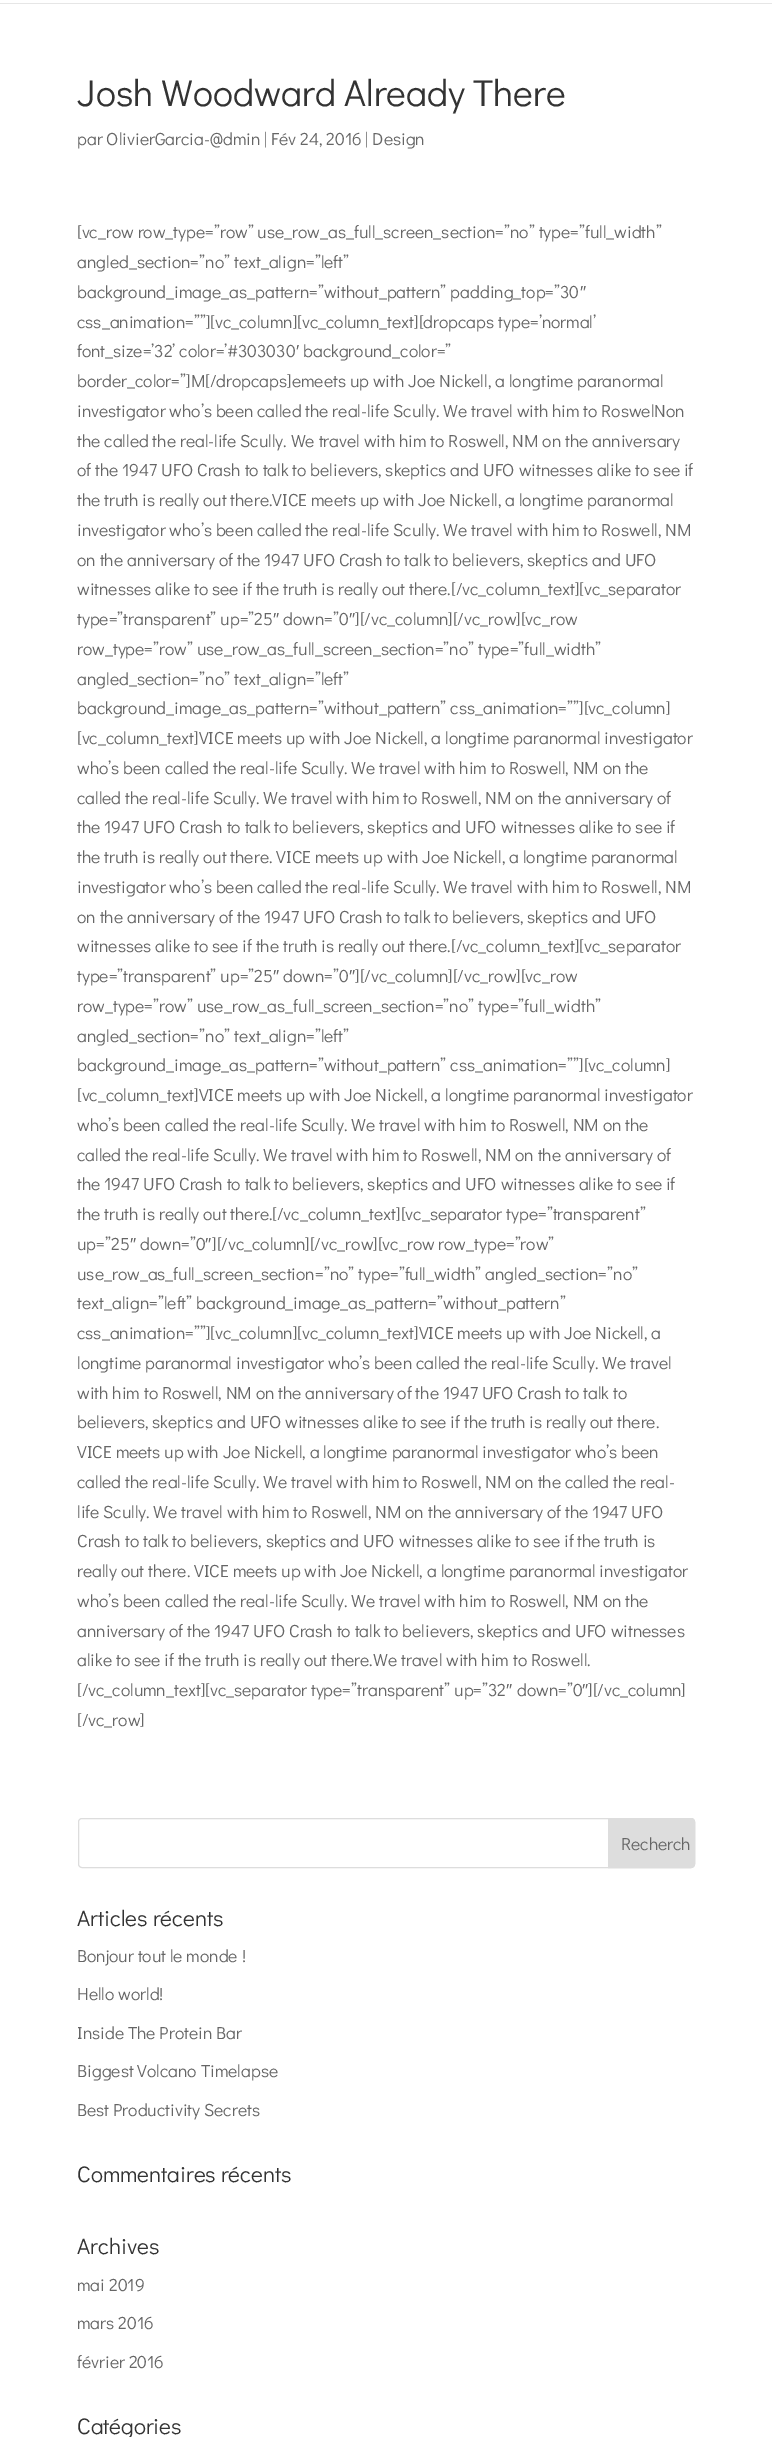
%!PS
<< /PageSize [772 2437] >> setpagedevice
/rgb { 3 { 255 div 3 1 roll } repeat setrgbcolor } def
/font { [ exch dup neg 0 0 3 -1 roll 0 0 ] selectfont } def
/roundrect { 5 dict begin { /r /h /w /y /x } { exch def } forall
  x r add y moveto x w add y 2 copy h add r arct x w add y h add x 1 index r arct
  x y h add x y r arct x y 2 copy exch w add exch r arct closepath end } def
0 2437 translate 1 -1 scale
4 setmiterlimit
255 255 255 rgb
0 0 772 2437 rectfill
230 230 230 rgb
0 2 moveto 0 4 lineto 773 4 lineto 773 -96 lineto 772 -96 lineto 772 2 lineto closepath fill
255 255 255 rgb
0 2 772 1 rectfill
221 221 221 rgb
78.5 1818.5 616 49 3.5 roundrect stroke
608.5 1818.5 moveto 691 1818.5 lineto 693 1818.5 694.5 1820 694.5 1822 curveto 694.5 1864 lineto 694.5 1866 693 1867.5 691 1867.5 curveto 608.5 1867.5 lineto closepath gsave fill grestore
stroke
/DidactGothic-Regular 37.5 font
51 51 51 rgb
77 106 moveto (Josh Woodward Already There) show
/DidactGothic-Regular 17.5 font
102 102 102 rgb
[
  [(par OlivierGarcia-@dmin | Fév 24, 2016 | Design) 77 145]
  [([vc_row row_type=”row” use_row_as_full_screen_section=”no” type=”full_width”) 77 238]
  [(angled_section=”no” text_align=”left”) 77 268]
  [(background_image_as_pattern=”without_pattern” padding_top=”30) 77 298]
] { aload pop moveto show } forall
/LiberationSans-Regular 17.5 font
580 298 moveto (″) show
/DidactGothic-Regular 17.5 font
77 328 moveto (css_animation=””][vc_column][vc_column_text][dropcaps type=’normal’) show
77 357 moveto (font_size=’32’ color=’#303030) show
/LiberationSans-Regular 17.5 font
296 357 moveto (′) show
/DidactGothic-Regular 17.5 font
[
  [(background_color=”) 303 357]
  [(border_color=”]M[/dropcaps]emeets up with Joe Nickell, a longtime paranormal) 77 387]
  [(investigator who’s been called the real-life Scully. We travel with him to RoswelNon) 77 417]
  [(the called the real-life Scully. We travel with him to Roswell, NM on the anniversary) 77 447]
  [(of the 1947 UFO Crash to talk to believers, skeptics and UFO witnesses alike to see if) 77 476]
  [(the truth is really out there.VICE meets up with Joe Nickell, a longtime paranormal) 77 506]
  [(investigator who’s been called the real-life Scully. We travel with him to Roswell, NM) 77 536]
  [(on the anniversary of the 1947 UFO Crash to talk to believers, skeptics and UFO) 77 566]
  [(witnesses alike to see if the truth is really out there.[/vc_column_text][vc_separator) 77 595]
  [(type=”transparent” up=”25) 77 625]
] { aload pop moveto show } forall
/LiberationSans-Regular 17.5 font
273 625 moveto (″) show
/DidactGothic-Regular 17.5 font
283 625 moveto (down=”0) show
/LiberationSans-Regular 17.5 font
349 625 moveto (″) show
/DidactGothic-Regular 17.5 font
[
  [(][/vc_column][/vc_row][vc_row) 355 625]
  [(row_type=”row” use_row_as_full_screen_section=”no” type=”full_width”) 77 655]
  [(angled_section=”no” text_align=”left”) 77 685]
  [(background_image_as_pattern=”without_pattern” css_animation=””][vc_column]) 77 714]
  [([vc_column_text]VICE meets up with Joe Nickell, a longtime paranormal investigator) 77 744]
  [(who’s been called the real-life Scully. We travel with him to Roswell, NM on the) 77 774]
  [(called the real-life Scully. We travel with him to Roswell, NM on the anniversary of) 77 804]
  [(the 1947 UFO Crash to talk to believers, skeptics and UFO witnesses alike to see if) 77 833]
  [(the truth is really out there. VICE meets up with Joe Nickell, a longtime paranormal) 77 863]
  [(investigator who’s been called the real-life Scully. We travel with him to Roswell, NM) 77 893]
  [(on the anniversary of the 1947 UFO Crash to talk to believers, skeptics and UFO) 77 923]
  [(witnesses alike to see if the truth is really out there.[/vc_column_text][vc_separator) 77 952]
  [(type=”transparent” up=”25) 77 982]
] { aload pop moveto show } forall
/LiberationSans-Regular 17.5 font
273 982 moveto (″) show
/DidactGothic-Regular 17.5 font
283 982 moveto (down=”0) show
/LiberationSans-Regular 17.5 font
349 982 moveto (″) show
/DidactGothic-Regular 17.5 font
[
  [(][/vc_column][/vc_row][vc_row) 355 982]
  [(row_type=”row” use_row_as_full_screen_section=”no” type=”full_width”) 77 1012]
  [(angled_section=”no” text_align=”left”) 77 1042]
  [(background_image_as_pattern=”without_pattern” css_animation=””][vc_column]) 77 1071]
  [([vc_column_text]VICE meets up with Joe Nickell, a longtime paranormal investigator) 77 1101]
  [(who’s been called the real-life Scully. We travel with him to Roswell, NM on the) 77 1131]
  [(called the real-life Scully. We travel with him to Roswell, NM on the anniversary of) 77 1161]
  [(the 1947 UFO Crash to talk to believers, skeptics and UFO witnesses alike to see if) 77 1190]
  [(the truth is really out there.[/vc_column_text][vc_separator type=”transparent”) 77 1220]
  [(up=”25) 77 1250]
] { aload pop moveto show } forall
/LiberationSans-Regular 17.5 font
130 1250 moveto (″) show
/DidactGothic-Regular 17.5 font
140 1250 moveto (down=”0) show
/LiberationSans-Regular 17.5 font
205 1250 moveto (″) show
/DidactGothic-Regular 17.5 font
[
  [(][/vc_column][/vc_row][vc_row row_type=”row”) 212 1250]
  [(use_row_as_full_screen_section=”no” type=”full_width” angled_section=”no”) 77 1280]
  [(text_align=”left” background_image_as_pattern=”without_pattern”) 77 1309]
  [(css_animation=””][vc_column][vc_column_text]VICE meets up with Joe Nickell, a) 77 1339]
  [(longtime paranormal investigator who’s been called the real-life Scully. We travel) 77 1369]
  [(with him to Roswell, NM on the anniversary of the 1947 UFO Crash to talk to) 77 1399]
  [(believers, skeptics and UFO witnesses alike to see if the truth is really out there.) 77 1428]
  [(VICE meets up with Joe Nickell, a longtime paranormal investigator who’s been) 77 1458]
  [(called the real-life Scully. We travel with him to Roswell, NM on the called the real-) 77 1488]
  [(life Scully. We travel with him to Roswell, NM on the anniversary of the 1947 UFO) 77 1518]
  [(Crash to talk to believers, skeptics and UFO witnesses alike to see if the truth is) 77 1547]
  [(really out there. VICE meets up with Joe Nickell, a longtime paranormal investigator) 77 1577]
  [(who’s been called the real-life Scully. We travel with him to Roswell, NM on the) 77 1607]
  [(anniversary of the 1947 UFO Crash to talk to believers, skeptics and UFO witnesses) 77 1637]
  [(alike to see if the truth is really out there.We travel with him to Roswell.) 77 1666]
  [([/vc_column_text][vc_separator type=”transparent” up=”32) 77 1696]
] { aload pop moveto show } forall
/LiberationSans-Regular 17.5 font
506 1696 moveto (″) show
/DidactGothic-Regular 17.5 font
517 1696 moveto (down=”0) show
/LiberationSans-Regular 17.5 font
582 1696 moveto (″) show
/DidactGothic-Regular 17.5 font
[
  [(][/vc_column]) 588 1696]
  [([/vc_row]) 77 1726]
  [(Recherch) 621 1850]
] { aload pop moveto show } forall
/DidactGothic-Regular 22.5 font
51 51 51 rgb
77 1926 moveto (Articles récents) show
/DidactGothic-Regular 17.5 font
102 102 102 rgb
[
  [(Bonjour tout le monde !) 77 1962]
  [(Hello world!) 77 2000]
  [(Inside The Protein Bar) 77 2039]
  [(Biggest Volcano Timelapse) 77 2077]
  [(Best Productivity Secrets) 77 2116]
] { aload pop moveto show } forall
/DidactGothic-Regular 22.5 font
51 51 51 rgb
77 2182 moveto (Commentaires récents) show
77 2254 moveto (Archives) show
/DidactGothic-Regular 17.5 font
102 102 102 rgb
[
  [(mai 2019) 77 2291]
  [(mars 2016) 77 2329]
  [(février 2016) 77 2368]
] { aload pop moveto show } forall
/DidactGothic-Regular 22.5 font
51 51 51 rgb
77 2434 moveto (Catégories) show
showpage
